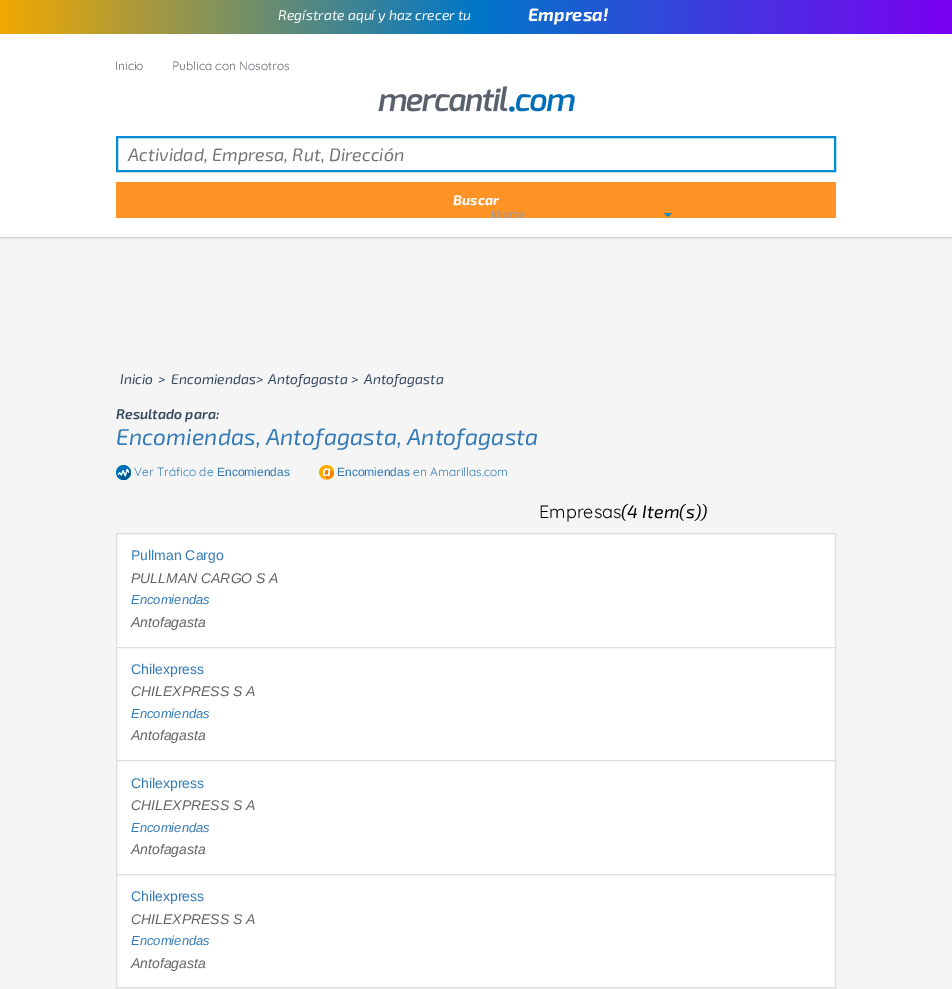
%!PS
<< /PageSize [952 989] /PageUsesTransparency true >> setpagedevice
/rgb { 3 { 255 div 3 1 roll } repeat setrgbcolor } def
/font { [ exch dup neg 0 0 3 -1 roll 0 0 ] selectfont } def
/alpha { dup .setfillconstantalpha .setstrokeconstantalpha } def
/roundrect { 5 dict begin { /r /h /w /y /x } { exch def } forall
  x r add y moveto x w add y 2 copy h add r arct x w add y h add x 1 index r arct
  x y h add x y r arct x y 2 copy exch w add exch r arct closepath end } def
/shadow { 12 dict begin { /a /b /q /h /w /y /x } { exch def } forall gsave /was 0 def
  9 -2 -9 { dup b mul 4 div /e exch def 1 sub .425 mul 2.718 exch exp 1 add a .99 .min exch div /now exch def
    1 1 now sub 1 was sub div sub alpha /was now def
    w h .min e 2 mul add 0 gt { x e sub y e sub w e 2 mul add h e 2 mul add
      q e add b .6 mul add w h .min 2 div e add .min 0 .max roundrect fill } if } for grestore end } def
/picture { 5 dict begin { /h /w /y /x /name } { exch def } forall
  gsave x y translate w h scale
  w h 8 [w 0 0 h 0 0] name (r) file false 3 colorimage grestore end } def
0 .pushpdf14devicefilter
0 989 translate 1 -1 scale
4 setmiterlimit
245 245 245 rgb
0 0 952 989 rectfill
157 157 157 rgb
0 34 952 203 0 1.5 1 shadow
gsave 0 0 moveto 952 0 lineto 952 34 lineto 0 34 lineto closepath clip newpath
<< /ShadingType 2 /ColorSpace /DeviceRGB /Coords [952 25 -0.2 9] /Extend [true true] /Function << /FunctionType 3 /Domain [0 1] /Functions [<< /FunctionType 2 /Domain [0 1] /C0 [0.482 0 0.949] /C1 [0 0.467 0.784] /N 1 >> << /FunctionType 2 /Domain [0 1] /C0 [0 0.467 0.784] /C1 [0.949 0.663 0] /N 1 >>] /Bounds [0.5] /Encode [0 1 0 1] >> >> shfill grestore
255 255 255 rgb
0 34 952 203 rectfill
(img/1.rgb) 378 86 197 26 picture
0 139 210 rgb
2 setlinewidth
117 137 718 34 rectstroke
255 147 38 rgb
116 182 720 36 rectfill
0 139 210 rgb
664 213 moveto 672 213 lineto 668 217 lineto closepath fill
(img/2.rgb) 116 465 15 15 picture
(img/3.rgb) 319 465 15 15 picture
255 255 255 rgb
116.5 533.5 moveto 835.5 533.5 lineto 835.5 647.5 lineto 116.5 647.5 lineto closepath gsave fill grestore
221 221 221 rgb
1 setlinewidth
stroke
255 255 255 rgb
116.5 647.5 moveto 835.5 647.5 lineto 835.5 760.5 lineto 116.5 760.5 lineto closepath gsave fill grestore
221 221 221 rgb
stroke
255 255 255 rgb
116.5 760.5 moveto 835.5 760.5 lineto 835.5 874.5 lineto 116.5 874.5 lineto closepath gsave fill grestore
221 221 221 rgb
stroke
255 255 255 rgb
116.5 874.5 moveto 835.5 874.5 lineto 835.5 987.5 lineto 116.5 987.5 lineto closepath gsave fill grestore
221 221 221 rgb
stroke
/Exo2-Italic 14 font
255 255 255 rgb
278 20 moveto (Regístrate aquí y haz crecer tu) show
/Exo2-BoldItalic 18 font
528 21 moveto (Empresa!) show
/Quicksand-Regular 12 font
95 102 110 rgb
115 70 moveto (Inicio) show
172 70 moveto (Publica con Nosotros) show
/Exo2-Italic 18 font
117 117 117 rgb
128 161 moveto (Actividad, Empresa, Rut, Dirección) show
/Exo2-BoldItalic 14 font
255 255 255 rgb
453 205 moveto (Buscar) show
/LiberationSans-Regular 11 font
153 153 153 rgb
491 218 moveto (Idioma) show
/Exo2-Italic 14 font
51 71 94 rgb
[
  [(Inicio) 120 384]
  [(>) 158 384]
  [(Encomiendas>) 171 384]
  [(Antofagasta >) 268 384]
  [(Antofagasta) 364 384]
] { aload pop moveto show } forall
/Exo2-SemiBoldItalic 14 font
116 419 moveto (Resultado para:) show
/Exo2-Italic 23 font
51 122 183 rgb
116 445 moveto (Encomiendas, Antofagasta, Antofagasta) show
/Quicksand-Regular 12 font
134 476 moveto (Ver Tráfico de) show
/LiberationSans-Regular 12 font
217 476 moveto (Encomiendas) show
337 476 moveto (Encomiendas) show
/Quicksand-Regular 12 font
413 476 moveto (en Amarillas.com) show
/Quicksand-Regular 18 font
0 0 0 rgb
539 518 moveto (Empresas) show
/Exo2-Italic 18 font
621 518 moveto (\(4 Item\(s\)\)) show
/LiberationSans-Regular 14 font
51 122 183 rgb
131 560 moveto (Pullman Cargo) show
/LiberationSans-Italic 14 font
99 99 96 rgb
131 583 moveto (PULLMAN CARGO S A) show
/LiberationSans-Italic 13 font
51 122 183 rgb
131 604 moveto (Encomiendas) show
/LiberationSans-Italic 14 font
99 99 96 rgb
131 627 moveto (Antofagasta) show
/LiberationSans-Regular 14 font
51 122 183 rgb
131 674 moveto (Chilexpress) show
/LiberationSans-Italic 14 font
99 99 96 rgb
131 696 moveto (CHILEXPRESS S A) show
/LiberationSans-Italic 13 font
51 122 183 rgb
131 718 moveto (Encomiendas) show
/LiberationSans-Italic 14 font
99 99 96 rgb
131 740 moveto (Antofagasta) show
/LiberationSans-Regular 14 font
51 122 183 rgb
131 788 moveto (Chilexpress) show
/LiberationSans-Italic 14 font
99 99 96 rgb
131 810 moveto (CHILEXPRESS S A) show
/LiberationSans-Italic 13 font
51 122 183 rgb
131 832 moveto (Encomiendas) show
/LiberationSans-Italic 14 font
99 99 96 rgb
131 854 moveto (Antofagasta) show
/LiberationSans-Regular 14 font
51 122 183 rgb
131 901 moveto (Chilexpress) show
/LiberationSans-Italic 14 font
99 99 96 rgb
131 924 moveto (CHILEXPRESS S A) show
/LiberationSans-Italic 13 font
51 122 183 rgb
131 945 moveto (Encomiendas) show
/LiberationSans-Italic 14 font
99 99 96 rgb
131 968 moveto (Antofagasta) show
.poppdf14devicefilter showpage
